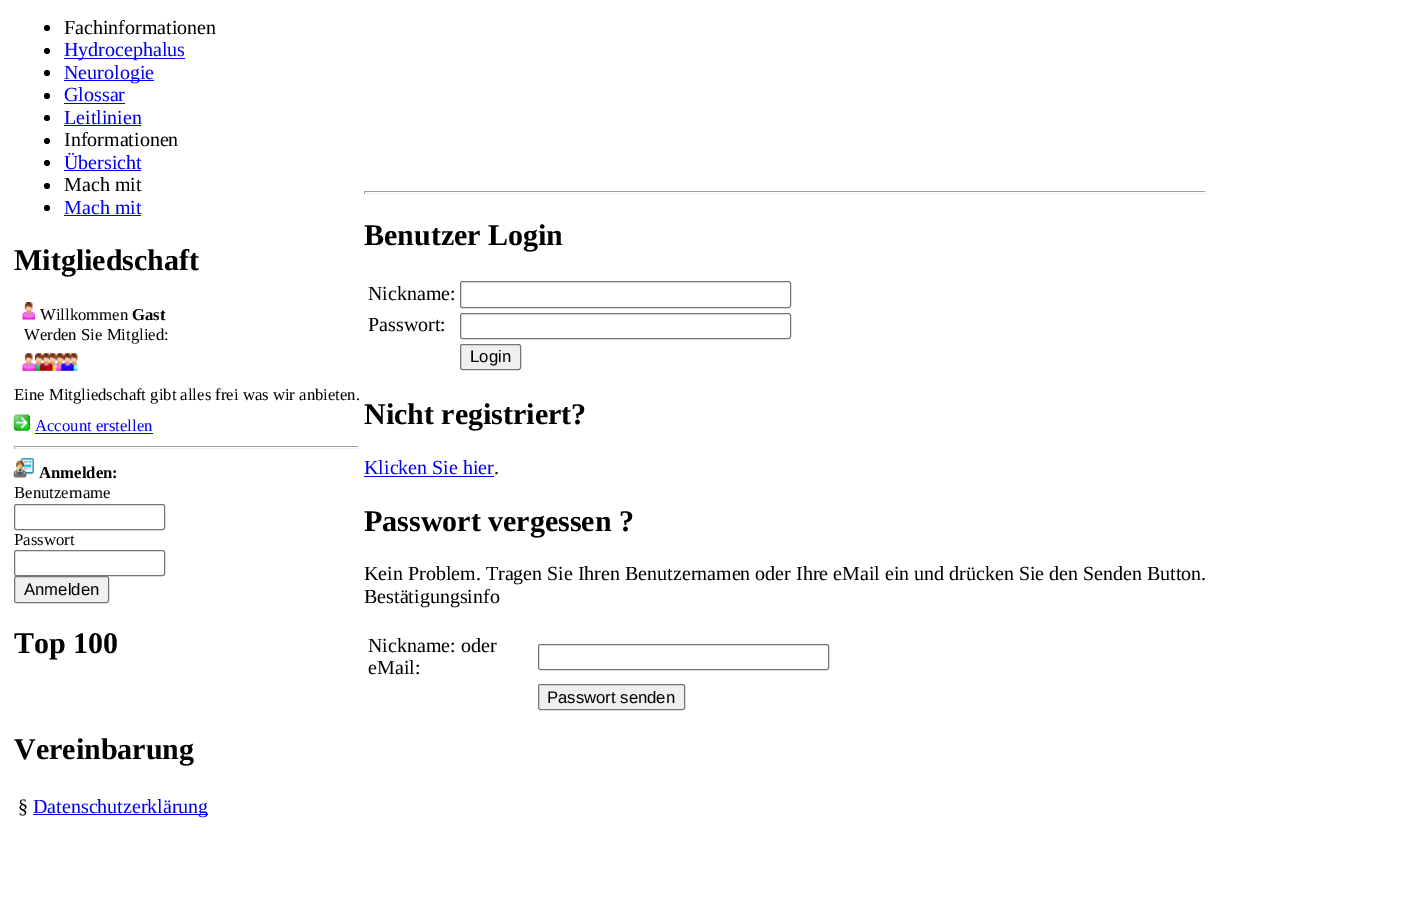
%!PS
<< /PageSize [1423 902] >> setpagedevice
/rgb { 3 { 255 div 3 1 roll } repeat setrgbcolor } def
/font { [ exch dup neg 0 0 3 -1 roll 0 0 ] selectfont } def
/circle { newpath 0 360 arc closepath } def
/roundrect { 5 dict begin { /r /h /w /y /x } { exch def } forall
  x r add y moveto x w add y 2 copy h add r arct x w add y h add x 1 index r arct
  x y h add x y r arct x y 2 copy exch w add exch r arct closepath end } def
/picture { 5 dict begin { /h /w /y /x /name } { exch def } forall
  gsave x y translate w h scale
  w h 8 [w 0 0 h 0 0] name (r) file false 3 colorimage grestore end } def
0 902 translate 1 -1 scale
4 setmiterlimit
255 255 255 rgb
0 0 1423 902 rectfill
0 0 0 rgb
47 28 3 circle fill
47 51 3 circle fill
0 0 238 rgb
64 58 121 1 rectfill
0 0 0 rgb
47 73 3 circle fill
0 0 238 rgb
64 80 90 1 rectfill
0 0 0 rgb
47 96 3 circle fill
0 0 238 rgb
64 103 61 1 rectfill
0 0 0 rgb
47 118 3 circle fill
0 0 238 rgb
64 125 77 1 rectfill
0 0 0 rgb
47 141 3 circle fill
47 163 3 circle fill
0 0 238 rgb
64 170 77 1 rectfill
0 0 0 rgb
47 186 3 circle fill
47 208 3 circle fill
0 0 238 rgb
64 215 77 1 rectfill
(img/1.rgb) 22 302 13 18 picture
(img/2.rgb) 22 353 13 18 picture
(img/3.rgb) 35 353 22 18 picture
(img/4.rgb) 56 353 22 18 picture
(img/5.rgb) 13 414 17 17 picture
[
  [35 433 118 1 0 0 238]
  [14 446 345 1 159 159 159]
  [358 446 1 3 238 238 238]
  [14 448 345 1 238 238 238]
  [14 446 1 3 159 159 159]
] { aload pop rgb rectfill } forall
(img/6.rgb) 13 458 21 21 picture
118 118 118 rgb
14.5 504.5 150 25 2 roundrect stroke
14.5 550.5 150 25 2 roundrect stroke
239 239 239 rgb
14.5 576.5 94 26 2 roundrect gsave fill grestore
118 118 118 rgb
stroke
[
  [33 814 175 1 0 0 238]
  [364 191 842 1 159 159 159]
  [1205 191 1 3 238 238 238]
  [364 193 842 1 238 238 238]
  [364 191 1 3 159 159 159]
] { aload pop rgb rectfill } forall
118 118 118 rgb
460.5 281.5 330 26 2 roundrect stroke
460.5 313.5 330 25 2 roundrect stroke
239 239 239 rgb
460.5 344.5 60 25 2 roundrect gsave fill grestore
118 118 118 rgb
stroke
0 0 238 rgb
364 476 130 1 rectfill
118 118 118 rgb
538.5 644.5 290 25 2 roundrect stroke
239 239 239 rgb
538.5 684.5 146 25 2 roundrect gsave fill grestore
118 118 118 rgb
stroke
/LiberationSerif-Regular 20 font
0 0 0 rgb
64 34 moveto (Fachinformationen) show
0 0 238 rgb
[
  [(Hydrocephalus) 64 56]
  [(Neurologie) 64 79]
  [(Glossar) 64 101]
  [(Leitlinien) 64 124]
] { aload pop moveto show } forall
0 0 0 rgb
64 146 moveto (Informationen) show
0 0 238 rgb
64 169 moveto (Übersicht) show
0 0 0 rgb
64 191 moveto (Mach mit) show
0 0 238 rgb
64 214 moveto (Mach mit) show
/LiberationSerif-Bold 30 font
0 0 0 rgb
14 270 moveto (Mitgliedschaft) show
/LiberationSerif-Regular 16.7 font
40 320 moveto (Willkommen) show
/LiberationSerif-Bold 16.7 font
132 320 moveto (Gast) show
/LiberationSerif-Regular 16.7 font
24 340 moveto (Werden Sie Mitglied:) show
14 400 moveto (Eine Mitgliedschaft gibt alles frei was wir anbieten.) show
0 0 238 rgb
35 431 moveto (Account erstellen) show
/LiberationSerif-Bold 16.7 font
0 0 0 rgb
39 478 moveto (Anmelden:) show
/LiberationSerif-Regular 16.7 font
14 498 moveto (Benutzername) show
14 545 moveto (Passwort) show
/LiberationSans-Regular 16.7 font
24 595 moveto (Anmelden) show
/LiberationSerif-Bold 30 font
14 653 moveto (Top 100) show
14 759 moveto (Vereinbarung) show
/LiberationSerif-Regular 20 font
18 813 moveto (§) show
0 0 238 rgb
33 813 moveto (Datenschutzerklärung) show
/LiberationSerif-Bold 30 font
0 0 0 rgb
364 245 moveto (Benutzer Login) show
/LiberationSerif-Regular 20 font
368 300 moveto (Nickname:) show
368 331 moveto (Passwort:) show
/LiberationSans-Regular 16.7 font
470 362 moveto (Login) show
/LiberationSerif-Bold 30 font
364 424 moveto (Nicht registriert?) show
/LiberationSerif-Regular 20 font
0 0 238 rgb
364 474 moveto (Klicken Sie hier) show
0 0 0 rgb
494 474 moveto (.) show
/LiberationSerif-Bold 30 font
364 531 moveto (Passwort vergessen ?) show
/LiberationSerif-Regular 20 font
[
  [(Kein Problem. Tragen Sie Ihren Benutzernamen oder Ihre eMail ein und drücken Sie den Senden Button.) 364 580]
  [(Bestätigungsinfo) 364 603]
  [(Nickname: oder) 368 652]
  [(eMail:) 368 674]
] { aload pop moveto show } forall
/LiberationSans-Regular 16.7 font
547 703 moveto (Passwort senden) show
showpage
